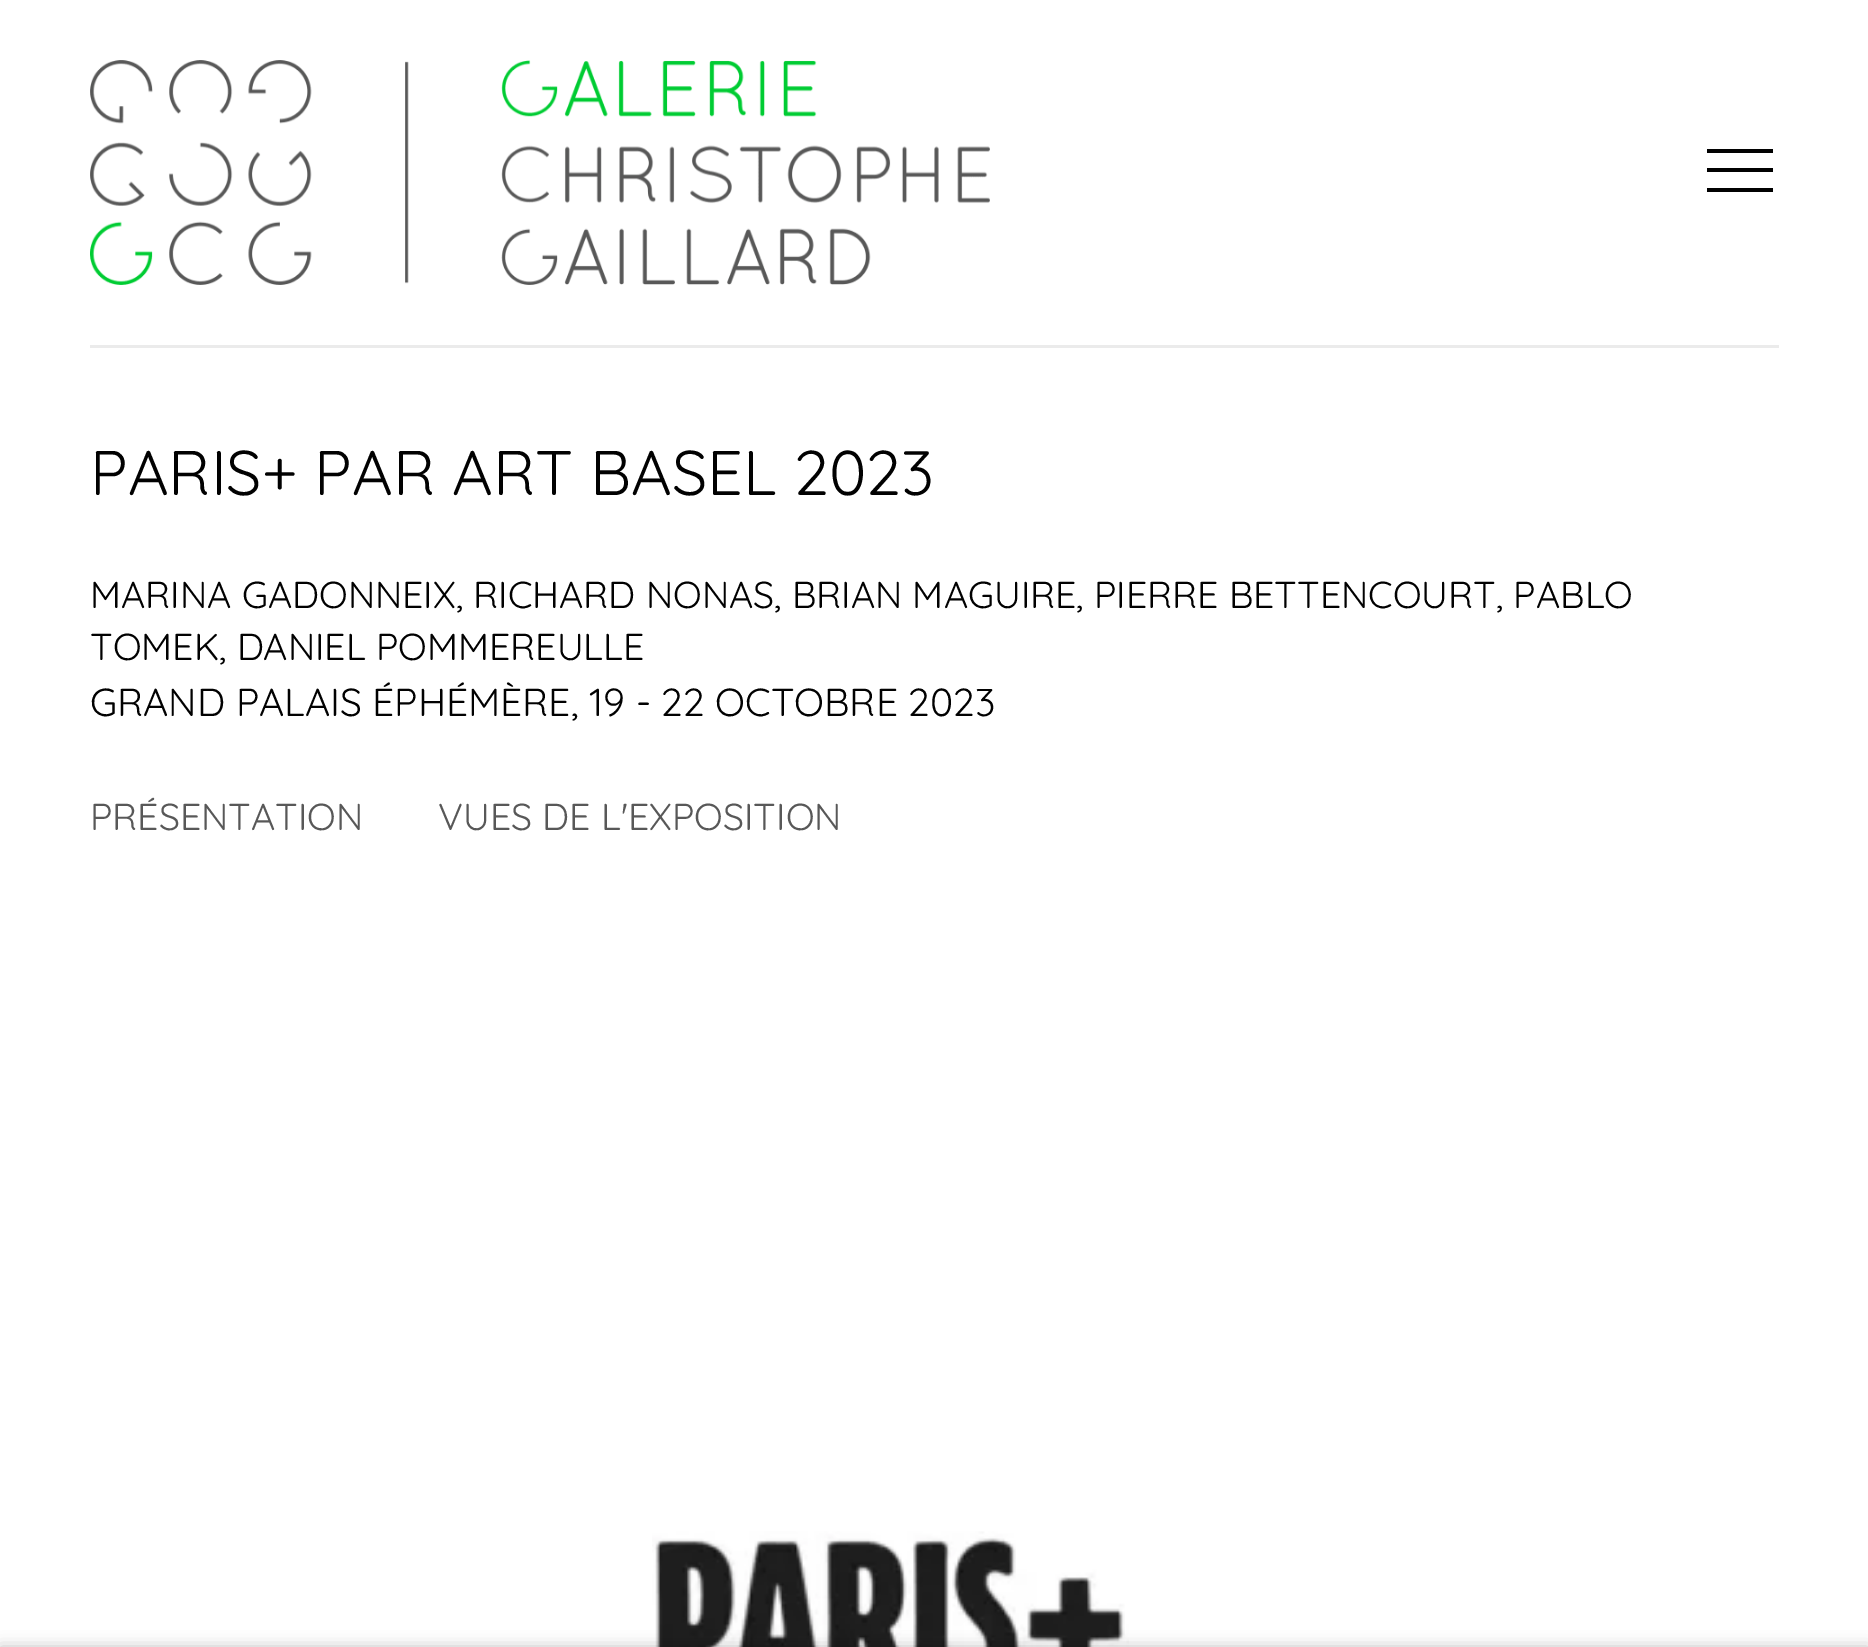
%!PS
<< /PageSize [1868 1647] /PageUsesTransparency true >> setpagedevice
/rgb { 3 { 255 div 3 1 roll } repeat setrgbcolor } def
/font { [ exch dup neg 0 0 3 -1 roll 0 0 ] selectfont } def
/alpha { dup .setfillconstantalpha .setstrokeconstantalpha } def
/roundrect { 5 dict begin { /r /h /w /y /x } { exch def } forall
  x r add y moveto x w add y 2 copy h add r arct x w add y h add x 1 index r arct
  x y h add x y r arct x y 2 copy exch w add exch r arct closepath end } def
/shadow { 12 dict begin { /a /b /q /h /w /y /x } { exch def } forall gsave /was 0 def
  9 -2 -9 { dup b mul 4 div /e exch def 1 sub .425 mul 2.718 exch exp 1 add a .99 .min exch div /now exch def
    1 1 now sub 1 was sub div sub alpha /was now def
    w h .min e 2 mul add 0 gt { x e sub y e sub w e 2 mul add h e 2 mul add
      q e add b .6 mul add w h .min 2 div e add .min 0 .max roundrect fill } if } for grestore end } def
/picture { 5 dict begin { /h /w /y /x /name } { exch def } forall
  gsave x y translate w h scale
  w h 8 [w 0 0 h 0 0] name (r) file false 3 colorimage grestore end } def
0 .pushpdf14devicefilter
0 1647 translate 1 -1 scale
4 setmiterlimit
255 255 255 rgb
0 0 1868 1647 rectfill
235 235 235 rgb
90 345 1689 3 rectfill
(img/1.rgb) 90 60 900 225 picture
1 1 1 rgb
1707 192 moveto 1707 188 lineto 1773 188 lineto 1773 192 lineto closepath 1707 172 moveto 1707 168 lineto 1773 168 lineto 1773 172 lineto closepath 1707 153 moveto 1707 149 lineto 1773 149 lineto 1773 153 lineto closepath fill
(img/2.rgb) 652 1531 477 116 picture
0 0 0 rgb
0 1647 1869 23 0 7.5 0.23 shadow
/Quicksand-Light 63 font
1 1 1 rgb
90 495 moveto (PARIS+ PAR ART BASEL 2023) show
/Quicksand-Light 37.5 font
90 608 moveto (MARINA GADONNEIX, RICHARD NONAS, BRIAN MAGUIRE, PIERRE BETTENCOURT, PABLO) show
90 660 moveto (TOMEK, DANIEL POMMEREULLE) show
/Quicksand-Light 39 font
90 716 moveto (GRAND PALAIS ÉPHÉMÈRE, 19 - 22 OCTOBRE 2023) show
/Quicksand-Light 37.5 font
88 88 88 rgb
90 830 moveto (PRÉSENTATION) show
438 830 moveto (VUES DE L'EXPOSITION) show
.poppdf14devicefilter showpage
